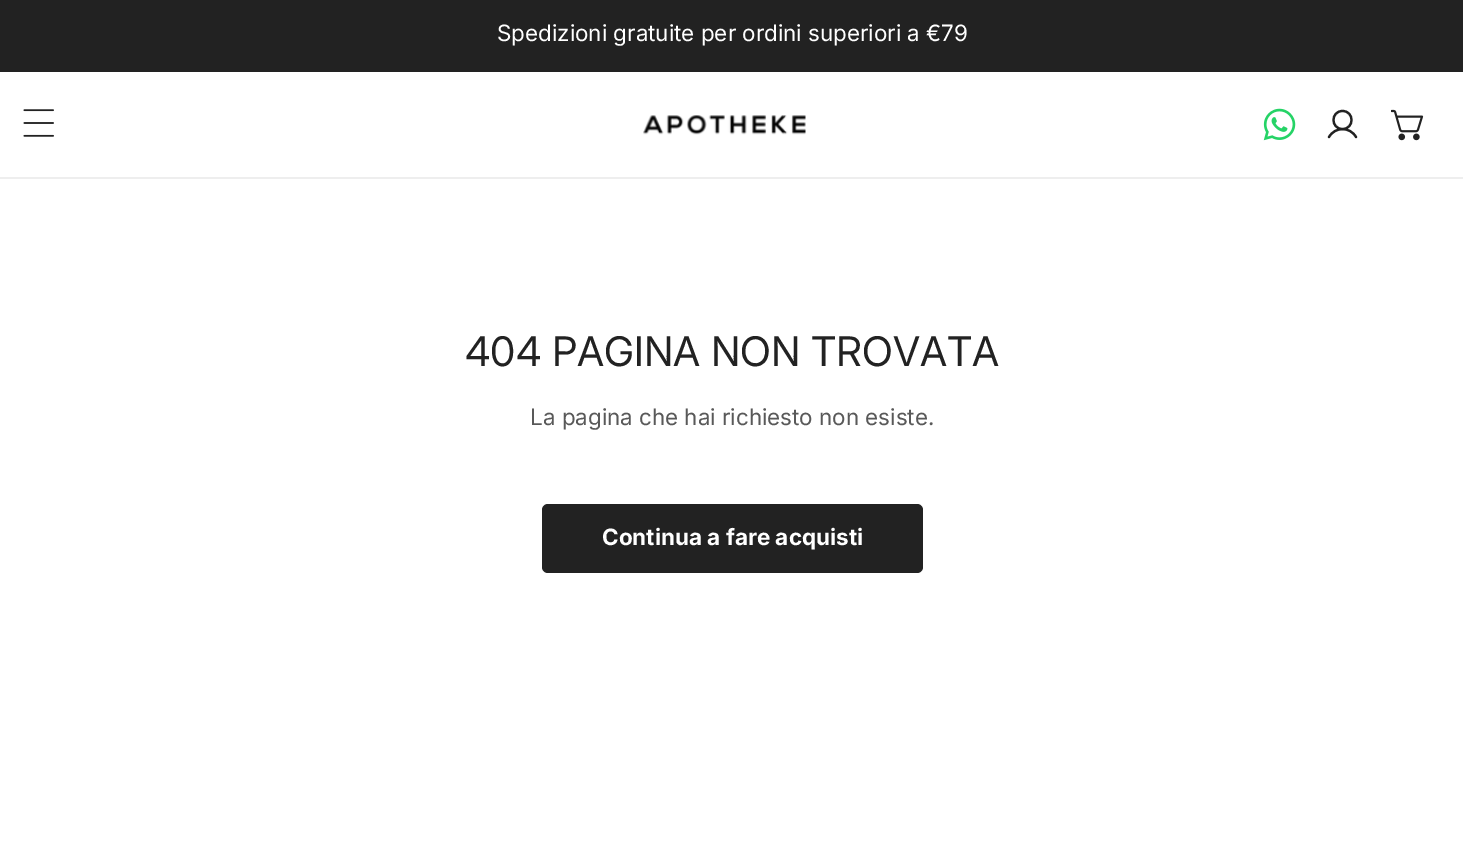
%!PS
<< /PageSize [1463 857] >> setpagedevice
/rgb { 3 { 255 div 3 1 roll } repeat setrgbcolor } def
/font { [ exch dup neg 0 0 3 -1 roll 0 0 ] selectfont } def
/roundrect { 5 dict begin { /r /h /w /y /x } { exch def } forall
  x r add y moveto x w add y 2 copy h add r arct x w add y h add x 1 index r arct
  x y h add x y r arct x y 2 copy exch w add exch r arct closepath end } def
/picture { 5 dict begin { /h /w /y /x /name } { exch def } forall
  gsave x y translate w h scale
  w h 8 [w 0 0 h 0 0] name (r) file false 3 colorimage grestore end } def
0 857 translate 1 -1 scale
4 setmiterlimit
255 255 255 rgb
0 0 1463 857 rectfill
34 34 34 rgb
0 0 1463 72 rectfill
238 238 238 rgb
0 177 1463 2 rectfill
(img/1.rgb) 23 109 31 28 picture
(img/2.rgb) 643 115 163 20 picture
(img/3.rgb) 1263 108 33 33 picture
34 34 34 rgb
2.2 setlinewidth
1 setlinecap
1 setlinejoin
1342.5 129 moveto 1354.5 129 1354.5 111 1342.5 111 curveto 1330.5 111 1330.5 129 1342.5 129 curveto closepath 1329 137 moveto 1335 126.5 1350 126.5 1356 137 curveto stroke
(img/4.rgb) 1391 109 33 32 picture
542 504 381 69 6 roundrect fill
/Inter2-Regular 22.5 font
255 255 255 rgb
497 41 moveto (Spedizioni gratuite per ordini superiori a €79) show
/Inter-Regular 40.75 font
34 34 34 rgb
465 366 moveto (404 PAGINA NON TROVATA) show
/Inter2-Regular 22.5 font
89 89 89 rgb
530 425 moveto (La pagina che hai richiesto non esiste.) show
/Inter-Bold 22.5 font
255 255 255 rgb
602 545 moveto (Continua a fare acquisti) show
showpage
